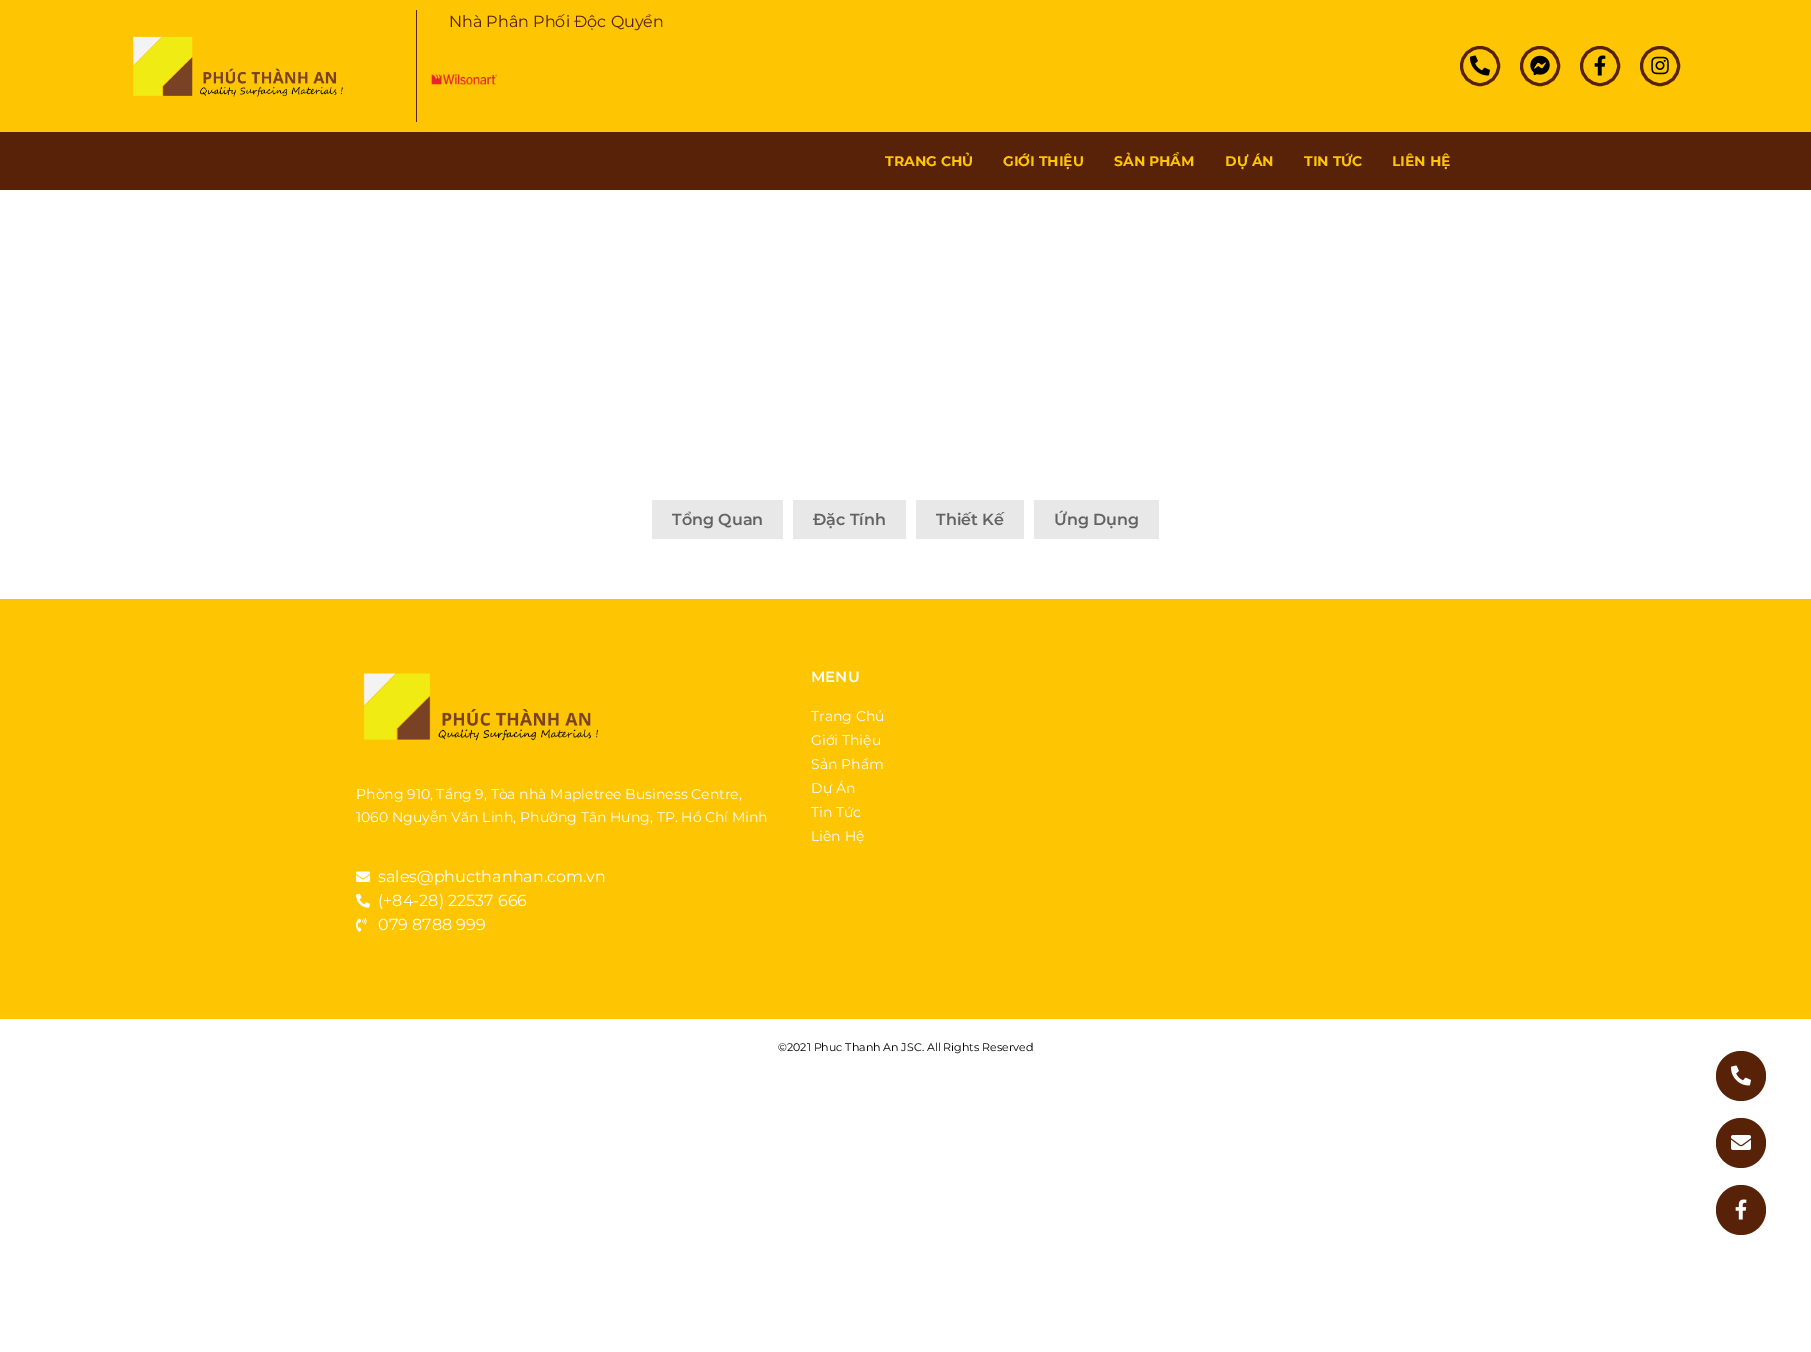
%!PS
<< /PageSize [1811 1352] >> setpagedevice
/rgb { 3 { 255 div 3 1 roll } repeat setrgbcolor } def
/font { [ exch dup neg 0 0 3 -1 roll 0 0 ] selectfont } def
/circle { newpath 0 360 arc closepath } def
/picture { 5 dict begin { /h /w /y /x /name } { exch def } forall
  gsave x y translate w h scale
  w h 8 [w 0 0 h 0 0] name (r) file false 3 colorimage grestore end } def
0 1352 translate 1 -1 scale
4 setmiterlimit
255 255 255 rgb
0 0 1811 1352 rectfill
253 197 2 rgb
0 0 1811 132 rectfill
87 34 8 rgb
416 10 1 112 rectfill
(img/1.rgb) 431 74 66 11 picture
(img/2.rgb) 133 36 210 61 picture
3 setlinewidth
1480 66 18.5 circle stroke
(img/3.rgb) 1470 55 20 21 picture
1540 66 18.5 circle stroke
(img/4.rgb) 1530 55 20 21 picture
1600 66 18.5 circle stroke
(img/5.rgb) 1594 55 12 21 picture
1660 66 18.5 circle stroke
(img/6.rgb) 1651 56 18 19 picture
[
  [0 132 1811 58 87 34 8]
  [652 500 131 39 232 232 232]
  [793 500 113 39 232 232 232]
  [916 500 108 39 232 232 232]
  [1034 500 125 39 232 232 232]
  [0 599 1811 420 253 197 2]
] { aload pop rgb rectfill } forall
(img/7.rgb) 363 673 235 68 picture
(img/8.rgb) 356 871 14 11 picture
(img/9.rgb) 356 893 14 15 picture
(img/10.rgb) 356 917 11 15 picture
87 34 8 rgb
1741 1076 25 circle fill
(img/11.rgb) 1731 1065 20 21 picture
1741 1143 25 circle fill
(img/12.rgb) 1731 1135 20 15 picture
1741 1210 25 circle fill
(img/13.rgb) 1735 1199 12 21 picture
/Montserrat-Regular 16 font
449 27 moveto (Nhà Phân Phối Độc Quyền) show
/Montserrat-Bold 14 font
253 197 2 rgb
[
  [(TRANG CHỦ) 885 166]
  [(GIỚI THIỆU) 1003 166]
  [(SẢN PHẨM) 1114 166]
  [(DỰ ÁN) 1225 166]
  [(TIN TỨC) 1304 166]
  [(LIÊN HỆ) 1392 166]
] { aload pop moveto show } forall
/Montserrat-SemiBold 16 font
98 98 98 rgb
[
  [(Tổng Quan) 672 525]
  [(Đặc Tính) 813 525]
  [(Thiết Kế) 936 525]
  [(Ứng Dụng) 1054 525]
] { aload pop moveto show } forall
/Montserrat-SemiBold 15 font
255 255 255 rgb
811 682 moveto (MENU) show
/Montserrat-Regular 14 font
[
  [(Trang Chủ) 811 721]
  [(Giới Thiệu) 811 745]
  [(Sản Phẩm) 811 769]
  [(Dự Án) 811 793]
  [(Tin Tức) 811 817]
  [(Liên Hệ) 811 841]
  [(Phòng 910, Tầng 9, Tòa nhà Mapletree Business Centre,) 356 799]
  [(1060 Nguyễn Văn Linh, Phường Tân Hưng, TP. Hồ Chí Minh) 356 822]
] { aload pop moveto show } forall
/Montserrat-Regular 16 font
[
  [(sales@phucthanhan.com.vn) 378 882]
  [(\(+84-28\) 22537 666) 378 906]
  [(079 8788 999) 378 930]
] { aload pop moveto show } forall
/Montserrat-Regular 11 font
0 0 0 rgb
778 1051 moveto (©2021 Phuc Thanh An JSC. All Rights Reserved) show
showpage
